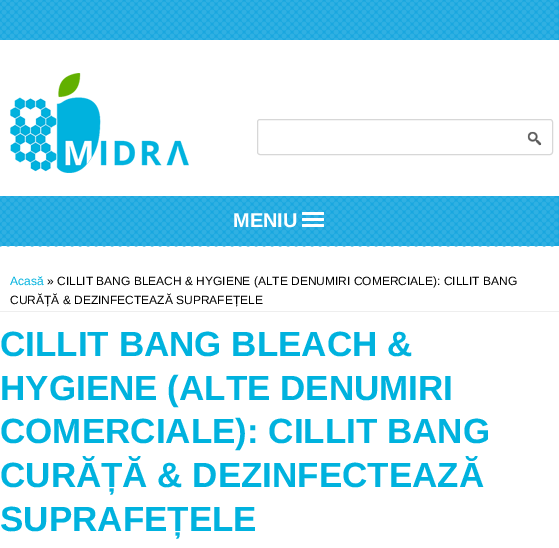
%!PS
<< /PageSize [559 548] /PageUsesTransparency true >> setpagedevice
/rgb { 3 { 255 div 3 1 roll } repeat setrgbcolor } def
/font { [ exch dup neg 0 0 3 -1 roll 0 0 ] selectfont } def
/alpha { dup .setfillconstantalpha .setstrokeconstantalpha } def
/roundrect { 5 dict begin { /r /h /w /y /x } { exch def } forall
  x r add y moveto x w add y 2 copy h add r arct x w add y h add x 1 index r arct
  x y h add x y r arct x y 2 copy exch w add exch r arct closepath end } def
/picture { 5 dict begin { /h /w /y /x /name } { exch def } forall
  gsave x y translate w h scale
  w h 8 [w 0 0 h 0 0] name (r) file false 3 colorimage grestore end } def
0 .pushpdf14devicefilter
0 548 translate 1 -1 scale
4 setmiterlimit
255 255 255 rgb
0 0 559 548 rectfill
25 167 223 rgb
0 0 559 40 rectfill
48 176 226 rgb
5 setlinewidth
1 setlinecap
[0 8] 0 setdash
0 0 moveto 552.2 0 lineto stroke
0 8 moveto 552.2 8 lineto stroke
0 16 moveto 552.2 16 lineto stroke
0 24 moveto 552.2 24 lineto stroke
0 32 moveto 552.2 32 lineto stroke
0.1 alpha
255 255 255 rgb
0 40 moveto 552.2 40 lineto stroke
1 alpha
48 176 226 rgb
4 4 moveto 556.2 4 lineto stroke
4 12 moveto 556.2 12 lineto stroke
4 20 moveto 556.2 20 lineto stroke
4 28 moveto 556.2 28 lineto stroke
4 36 moveto 556.2 36 lineto stroke
(img/1.rgb) 10 73 179 100 picture
215 215 215 rgb
1 setlinewidth
0 setlinecap
[] 0 setdash
257.5 119.5 295 35 2.5 roundrect stroke
(img/2.rgb) 527 131 15 15 picture
25 167 223 rgb
0 196 559 50 rectfill
0.1 alpha
255 255 255 rgb
5 setlinewidth
1 setlinecap
[0 8] 0 setdash
0 196 moveto 552.2 196 lineto stroke
1 alpha
48 176 226 rgb
0 204 moveto 552.2 204 lineto stroke
0 212 moveto 552.2 212 lineto stroke
0 220 moveto 552.2 220 lineto stroke
0 228 moveto 552.2 228 lineto stroke
0 236 moveto 552.2 236 lineto stroke
0 244 moveto 552.2 244 lineto stroke
4 200 moveto 556.2 200 lineto stroke
4 208 moveto 556.2 208 lineto stroke
4 216 moveto 556.2 216 lineto stroke
4 224 moveto 556.2 224 lineto stroke
4 232 moveto 556.2 232 lineto stroke
4 240 moveto 556.2 240 lineto stroke
255 255 255 rgb
302 212 22 3 1 roundrect fill
302 218 22 3 1 roundrect fill
302 224 22 3 1 roundrect fill
238 238 238 rgb
0 311 559 1 rectfill
/LiberationSans-Bold 20 font
255 255 255 rgb
233 227 moveto (MENIU) show
/LiberationSans-Regular 12 font
0 178 222 rgb
10 285 moveto (Acasă) show
0 0 0 rgb
47 285 moveto (» CILLIT BANG BLEACH & HYGIENE \(ALTE DENUMIRI COMERCIALE\): CILLIT BANG) show
10 304 moveto (CURĂȚĂ & DEZINFECTEAZĂ SUPRAFEȚELE) show
/LiberationSans-Bold 35 font
0 178 222 rgb
[
  [(CILLIT BANG BLEACH &) 0 356]
  [(HYGIENE \(ALTE DENUMIRI) 0 400]
  [(COMERCIALE\): CILLIT BANG) 0 443]
  [(CURĂȚĂ & DEZINFECTEAZĂ) 0 487]
  [(SUPRAFEȚELE) 0 531]
] { aload pop moveto show } forall
.poppdf14devicefilter showpage
